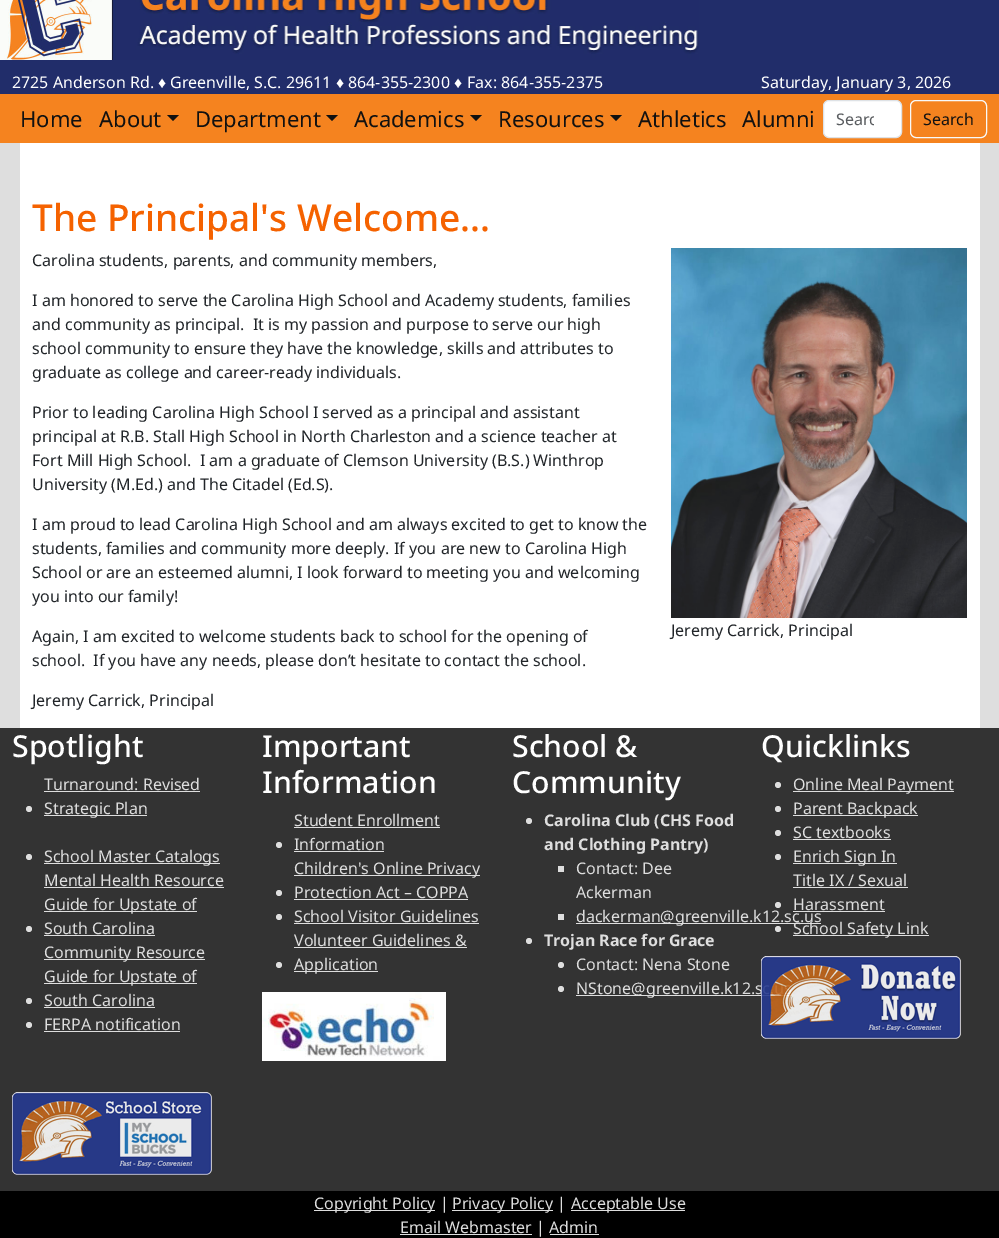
%!PS
<< /PageSize [999 1238] >> setpagedevice
/rgb { 3 { 255 div 3 1 roll } repeat setrgbcolor } def
/font { [ exch dup neg 0 0 3 -1 roll 0 0 ] selectfont } def
/circle { newpath 0 360 arc closepath } def
/roundrect { 5 dict begin { /r /h /w /y /x } { exch def } forall
  x r add y moveto x w add y 2 copy h add r arct x w add y h add x 1 index r arct
  x y h add x y r arct x y 2 copy exch w add exch r arct closepath end } def
/picture { 5 dict begin { /h /w /y /x /name } { exch def } forall
  gsave x y translate w h scale
  w h 8 [w 0 0 h 0 0] name (r) file false 3 colorimage grestore end } def
0 1238 translate 1 -1 scale
4 setmiterlimit
222 222 222 rgb
0 0 999 1238 rectfill
33 45 106 rgb
0 0 999 94 rectfill
(img/1.rgb) 0 0 699 60 picture
245 131 31 rgb
0 94 999 49 rectfill
17 17 17 rgb
167 115 moveto 179 115 lineto 173 121 lineto closepath fill
326 115 moveto 338 115 lineto 332 121 lineto closepath fill
470 115 moveto 482 115 lineto 476 121 lineto closepath fill
610 115 moveto 622 115 lineto 616 121 lineto closepath fill
255 255 255 rgb
823.5 100.5 78 37 5.5 roundrect gsave fill grestore
222 226 230 rgb
stroke
248 249 250 rgb
910.5 100.5 76 37 5.5 roundrect stroke
255 255 255 rgb
20 143 960 585 rectfill
(img/2.rgb) 671 248 296 370 picture
51 51 51 rgb
0 728 999 463 rectfill
222 222 222 rgb
29 809 3 circle fill
44 791 156 1 rectfill
44 815 103 1 rectfill
29 857 3 circle fill
44 863 176 1 rectfill
29 929 3 circle fill
[
  [44 887 180 1 222 222 222]
  [44 911 153 1 222 222 222]
  [44 935 111 1 222 222 222]
] { aload pop rgb rectfill } forall
29 1001 3 circle fill
[
  [44 959 161 1 222 222 222]
  [44 983 153 1 222 222 222]
  [44 1007 111 1 222 222 222]
] { aload pop rgb rectfill } forall
29 1025 3 circle fill
44 1031 136 1 rectfill
(img/3.rgb) 12 1092 200 83 picture
279 845 3 circle fill
294 827 146 1 rectfill
294 851 90 1 rectfill
279 893 3 circle fill
294 875 186 1 rectfill
294 899 174 1 rectfill
279 917 3 circle fill
294 923 185 1 rectfill
279 965 3 circle fill
294 947 173 1 rectfill
294 971 84 1 rectfill
(img/4.rgb) 262 992 184 69 picture
529 821 3 circle fill
[
  [558 866 6 6 222 222 222]
  [558 914 6 6 222 222 222]
  [576 923 245 1 222 222 222]
] { aload pop rgb rectfill } forall
529 941 3 circle fill
561 965 3 circle fill
561 989 3 circle fill
576 995 216 1 rectfill
778 785 3 circle fill
793 791 161 1 rectfill
778 809 3 circle fill
793 815 125 1 rectfill
778 833 3 circle fill
793 839 98 1 rectfill
778 857 3 circle fill
793 863 104 1 rectfill
778 905 3 circle fill
793 887 115 1 rectfill
793 911 92 1 rectfill
778 929 3 circle fill
[
  [793 935 136 1 222 222 222]
  [0 1191 999 47 0 0 0]
  [314 1210 121 1 222 222 222]
  [452 1210 101 1 222 222 222]
  [571 1210 114 1 222 222 222]
  [400 1234 132 1 222 222 222]
  [550 1234 49 1 222 222 222]
] { aload pop rgb rectfill } forall
/NotoSans-Regular 16 font
255 255 255 rgb
12 88 moveto (2725 Anderson Rd.) show
/LiberationSans-Regular 16 font
158 88 moveto (♦) show
/NotoSans-Regular 16 font
170 88 moveto (Greenville, S.C. 29611) show
/LiberationSans-Regular 16 font
336 88 moveto (♦) show
/NotoSans-Regular 16 font
348 88 moveto (864-355-2300) show
/LiberationSans-Regular 16 font
454 88 moveto (♦) show
/NotoSans-Regular 16 font
467 88 moveto (Fax: 864-355-2375) show
761 88 moveto (Saturday, January 3, 2026) show
/NotoSans-Regular 22 font
17 17 17 rgb
[
  [(Home) 20 127]
  [(About) 99 127]
  [(Department) 195 127]
  [(Academics) 354 127]
  [(Resources) 498 127]
  [(Athletics) 638 127]
  [(Alumni) 742 127]
] { aload pop moveto show } forall
gsave
836 108 38 22 rectclip
/NotoSans-Regular 16 font
89 92 95 rgb
836 125 moveto (Searc) show
grestore
/NotoSans-Regular 16 font
923 125 moveto (Search) show
/NotoSans-Medium 37 font
245 98 0 rgb
32 231 moveto (The Principal's Welcome...) show
/NotoSans-Regular 16 font
33 37 41 rgb
[
  [(Carolina students, parents, and community members,) 32 266]
  [(I am honored to serve the Carolina High School and Academy students, families) 32 306]
  [(and community as principal.  It is my passion and purpose to serve our high) 32 330]
  [(school community to ensure they have the knowledge, skills and attributes to) 32 354]
  [(graduate as college and career-ready individuals.) 32 378]
  [(Prior to leading Carolina High School I served as a principal and assistant) 32 418]
  [(principal at R.B. Stall High School in North Charleston and a science teacher at) 32 442]
  [(Fort Mill High School.  I am a graduate of Clemson University \(B.S.\) Winthrop) 32 466]
  [(University \(M.Ed.\) and The Citadel \(Ed.S\).) 32 490]
  [(I am proud to lead Carolina High School and am always excited to get to know the) 32 530]
  [(students, families and community more deeply. If you are new to Carolina High) 32 554]
  [(School or are an esteemed alumni, I look forward to meeting you and welcoming) 32 578]
  [(you into our family!) 32 602]
  [(Again, I am excited to welcome students back to school for the opening of) 32 642]
  [(school.  If you have any needs, please don’t hesitate to contact the school.) 32 666]
  [(Jeremy Carrick, Principal) 32 706]
  [(Jeremy Carrick, Principal) 671 636]
] { aload pop moveto show } forall
/NotoSans-Medium 30.25 font
255 255 255 rgb
12 757 moveto (Spotlight) show
/NotoSans-Regular 16 font
222 222 222 rgb
[
  [(Turnaround: Revised) 44 790]
  [(Strategic Plan) 44 814]
  [(School Master Catalogs) 44 862]
  [(Mental Health Resource) 44 886]
  [(Guide for Upstate of) 44 910]
  [(South Carolina) 44 934]
  [(Community Resource) 44 958]
  [(Guide for Upstate of) 44 982]
  [(South Carolina) 44 1006]
  [(FERPA notification) 44 1030]
] { aload pop moveto show } forall
/NotoSans-Medium 30.25 font
255 255 255 rgb
262 757 moveto (Important) show
262 793 moveto (Information) show
/NotoSans-Regular 16 font
222 222 222 rgb
[
  [(Student Enrollment) 294 826]
  [(Information) 294 850]
  [(Children's Online Privacy) 294 874]
  [(Protection Act – COPPA) 294 898]
  [(School Visitor Guidelines) 294 922]
  [(Volunteer Guidelines &) 294 946]
  [(Application) 294 970]
] { aload pop moveto show } forall
/NotoSans-Medium 30.25 font
255 255 255 rgb
512 757 moveto (School &) show
512 793 moveto (Community) show
/NotoSans-Bold 16 font
222 222 222 rgb
544 826 moveto (Carolina Club \(CHS Food) show
544 850 moveto (and Clothing Pantry\)) show
/NotoSans-Regular 16 font
[
  [(Contact: Dee) 576 874]
  [(Ackerman) 576 898]
  [(dackerman@greenville.k12.sc.us) 576 922]
] { aload pop moveto show } forall
/NotoSans-Bold 16 font
544 946 moveto (Trojan Race for Grace) show
/NotoSans-Regular 16 font
576 970 moveto (Contact: Nena Stone) show
576 994 moveto (NStone@greenville.k12.s) show
/NotoSans-Medium 30.25 font
255 255 255 rgb
761 757 moveto (Quicklinks) show
/NotoSans-Regular 16 font
222 222 222 rgb
[
  [(Online Meal Payment) 793 790]
  [(Parent Backpack) 793 814]
  [(SC textbooks) 793 838]
  [(Enrich Sign In) 793 862]
  [(Title IX / Sexual) 793 886]
  [(Harassment) 793 910]
  [(School Safety Link) 793 934]
] { aload pop moveto show } forall
(img/5.rgb) 761 956 200 83 picture
[
  [(Copyright Policy |) 314 1209]
  [(Privacy Policy |) 452 1209]
  [(Acceptable Use) 571 1209]
  [(Email Webmaster | Admin) 400 1233]
] { aload pop moveto show } forall
showpage
